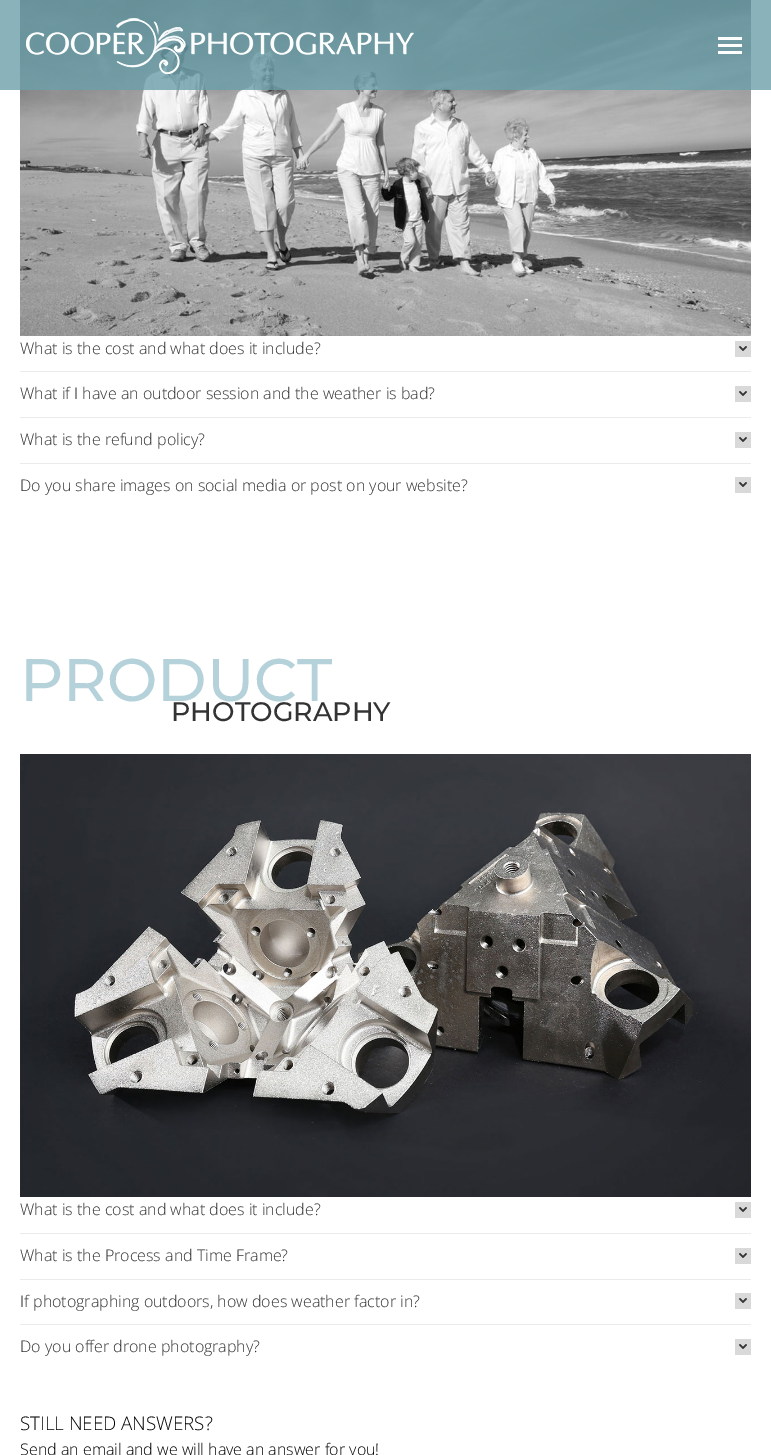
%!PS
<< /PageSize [771 1455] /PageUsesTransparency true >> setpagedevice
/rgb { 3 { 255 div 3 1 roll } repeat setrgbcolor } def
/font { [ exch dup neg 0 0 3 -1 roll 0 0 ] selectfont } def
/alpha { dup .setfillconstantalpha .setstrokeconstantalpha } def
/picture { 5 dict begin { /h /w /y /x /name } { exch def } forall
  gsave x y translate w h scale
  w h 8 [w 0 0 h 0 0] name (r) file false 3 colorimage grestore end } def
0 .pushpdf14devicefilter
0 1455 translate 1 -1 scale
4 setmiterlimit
255 255 255 rgb
0 0 771 1455 rectfill
(img/2.rgb) 20 0 731 336 picture
0.8 alpha
107 159 170 rgb
0 0 771 90 rectfill
1 alpha
(img/1.rgb) 26 18 388 56 picture
[
  [718 37 24 3 255 255 255]
  [718 44 24 3 255 255 255]
  [718 51 24 3 255 255 255]
  [735 341 16 16 217 217 217]
] { aload pop rgb rectfill } forall
(img/3.rgb) 739 346 8 5 picture
235 235 235 rgb
20 371 731 1 rectfill
217 217 217 rgb
735 386 16 16 rectfill
(img/3.rgb) 739 391 8 5 picture
235 235 235 rgb
20 417 731 1 rectfill
217 217 217 rgb
735 432 16 16 rectfill
(img/3.rgb) 739 437 8 5 picture
235 235 235 rgb
20 463 731 1 rectfill
217 217 217 rgb
735 477 16 16 rectfill
(img/3.rgb) 739 482 8 5 picture
(img/4.rgb) 20 754 731 443 picture
735 1202 16 16 rectfill
(img/3.rgb) 739 1207 8 5 picture
235 235 235 rgb
20 1233 731 1 rectfill
217 217 217 rgb
735 1248 16 16 rectfill
(img/3.rgb) 739 1253 8 5 picture
235 235 235 rgb
20 1279 731 1 rectfill
217 217 217 rgb
735 1293 16 16 rectfill
(img/3.rgb) 739 1298 8 5 picture
235 235 235 rgb
20 1324 731 1 rectfill
217 217 217 rgb
735 1339 16 16 rectfill
(img/3.rgb) 739 1344 8 5 picture
/OpenSans-Light 16 font
51 51 51 rgb
[
  [(What is the cost and what does it include?) 20 354]
  [(What if I have an outdoor session and the weather is bad?) 20 399]
  [(What is the refund policy?) 20 445]
  [(Do you share images on social media or post on your website?) 20 491]
] { aload pop moveto show } forall
/Montserrat-Medium 60 font
181 210 219 rgb
20 701 moveto (PRODUCT) show
/Montserrat-Medium 26.75 font
51 51 51 rgb
171 721 moveto (PHOTOGRAPHY) show
/OpenSans-Light 16 font
[
  [(What is the cost and what does it include?) 20 1215]
  [(What is the Process and Time Frame?) 20 1261]
  [(If photographing outdoors, how does weather factor in?) 20 1307]
  [(Do you offer drone photography?) 20 1352]
] { aload pop moveto show } forall
/OpenSans-Light 18.75 font
0 0 0 rgb
20 1430 moveto (STILL NEED ANSWERS?) show
/OpenSans-Light 16 font
20 1455 moveto (Send an email and we will have an answer for you!) show
.poppdf14devicefilter showpage
